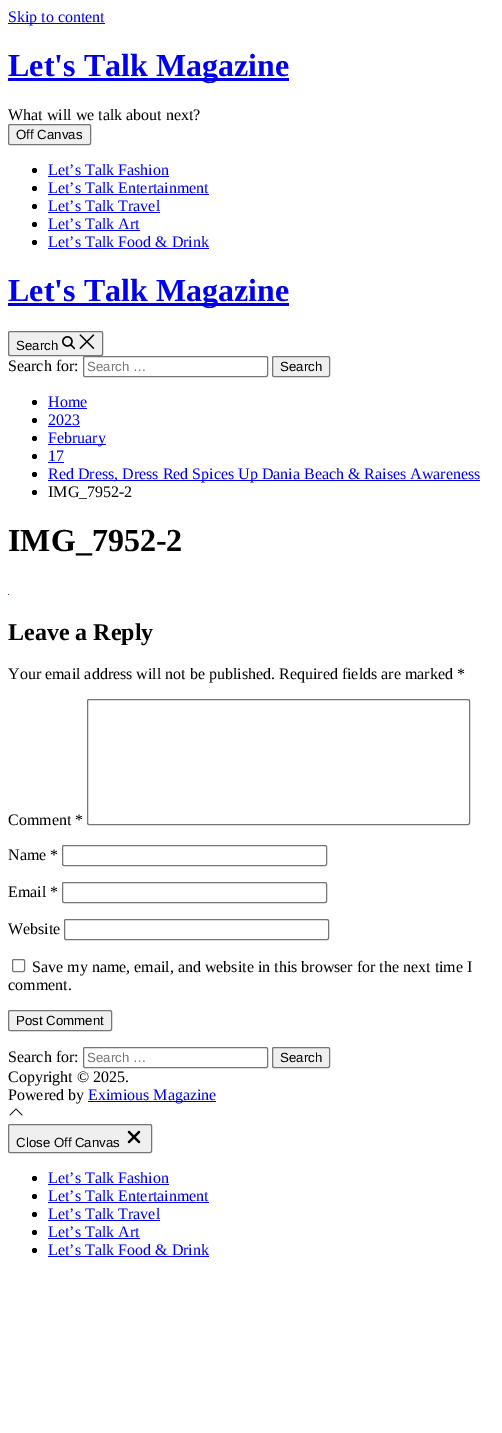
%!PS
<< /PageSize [502 1433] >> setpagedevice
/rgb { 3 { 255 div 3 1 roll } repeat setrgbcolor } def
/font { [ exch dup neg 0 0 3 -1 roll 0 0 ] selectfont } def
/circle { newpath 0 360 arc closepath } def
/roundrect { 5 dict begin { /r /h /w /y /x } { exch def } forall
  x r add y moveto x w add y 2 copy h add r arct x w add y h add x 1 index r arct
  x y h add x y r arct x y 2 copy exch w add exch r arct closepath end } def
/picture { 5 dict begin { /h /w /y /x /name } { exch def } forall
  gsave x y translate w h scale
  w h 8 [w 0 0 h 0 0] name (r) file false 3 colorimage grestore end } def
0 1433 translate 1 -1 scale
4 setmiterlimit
255 255 255 rgb
0 0 502 1433 rectfill
0 0 238 rgb
8 23 97 1 rectfill
8 78 281 3 rectfill
239 239 239 rgb
8.5 124.5 82 20 1.5 roundrect gsave fill grestore
118 118 118 rgb
stroke
0 0 0 rgb
34.5 170.5 2.5 circle fill
0 0 238 rgb
48 176 121 1 rectfill
0 0 0 rgb
34.5 188.5 2.5 circle fill
0 0 238 rgb
48 194 161 1 rectfill
0 0 0 rgb
34.5 206.5 2.5 circle fill
0 0 238 rgb
48 212 112 1 rectfill
0 0 0 rgb
34.5 224.5 2.5 circle fill
0 0 238 rgb
48 230 92 1 rectfill
0 0 0 rgb
34.5 242.5 2.5 circle fill
0 0 238 rgb
48 248 161 1 rectfill
8 303 281 3 rectfill
239 239 239 rgb
8.5 331.5 94 24 1.5 roundrect gsave fill grestore
118 118 118 rgb
stroke
(img/1.rgb) 62 336 13 14 picture
(img/2.rgb) 79 334 16 15 picture
83.5 356.5 184 20 1.5 roundrect stroke
239 239 239 rgb
272.5 356.5 57 20 1.5 roundrect gsave fill grestore
118 118 118 rgb
stroke
0 0 0 rgb
34.5 402.5 2.5 circle fill
0 0 238 rgb
48 408 39 1 rectfill
0 0 0 rgb
34.5 420.5 2.5 circle fill
0 0 238 rgb
48 426 32 1 rectfill
0 0 0 rgb
34.5 438.5 2.5 circle fill
0 0 238 rgb
48 444 58 1 rectfill
0 0 0 rgb
34.5 456.5 2.5 circle fill
0 0 238 rgb
48 462 16 1 rectfill
0 0 0 rgb
34.5 474.5 2.5 circle fill
0 0 238 rgb
48 480 432 1 rectfill
0 0 0 rgb
34.5 492.5 2.5 circle fill
118 50 70 rgb
8 594 1 1 rectfill
118 118 118 rgb
87.5 699.5 382 125 1.5 roundrect stroke
62.5 845.5 264 20 1.5 roundrect stroke
62.5 882.5 264 20 1.5 roundrect stroke
64.5 919.5 264 20 1.5 roundrect stroke
12.5 959.5 12 12 1.5 roundrect stroke
239 239 239 rgb
8.5 1010.5 103 20 1.5 roundrect gsave fill grestore
118 118 118 rgb
stroke
83.5 1047.5 184 20 1.5 roundrect stroke
239 239 239 rgb
272.5 1047.5 57 20 1.5 roundrect gsave fill grestore
118 118 118 rgb
stroke
0 0 238 rgb
88 1101 128 1 rectfill
(img/3.rgb) 9 1108 14 8 picture
239 239 239 rgb
8.5 1124.5 143 28 1.5 roundrect gsave fill grestore
118 118 118 rgb
stroke
(img/4.rgb) 127 1130 14 14 picture
0 0 0 rgb
34.5 1178.5 2.5 circle fill
0 0 238 rgb
48 1184 121 1 rectfill
0 0 0 rgb
34.5 1196.5 2.5 circle fill
0 0 238 rgb
48 1202 161 1 rectfill
0 0 0 rgb
34.5 1214.5 2.5 circle fill
0 0 238 rgb
48 1220 112 1 rectfill
0 0 0 rgb
34.5 1232.5 2.5 circle fill
0 0 238 rgb
48 1238 92 1 rectfill
0 0 0 rgb
34.5 1250.5 2.5 circle fill
0 0 238 rgb
48 1256 161 1 rectfill
/LiberationSerif-Regular 16 font
8 22 moveto (Skip to content) show
/LiberationSerif-Bold 32 font
8 76 moveto (Let's Talk Magazine) show
/LiberationSerif-Regular 16 font
0 0 0 rgb
8 120 moveto (What will we talk about next?) show
/LiberationSans-Regular 13.25 font
16 139 moveto (Off Canvas) show
/LiberationSerif-Regular 16 font
0 0 238 rgb
[
  [(Let’s Talk Fashion) 48 175]
  [(Let’s Talk Entertainment) 48 193]
  [(Let’s Talk Travel) 48 211]
  [(Let’s Talk Art) 48 229]
  [(Let’s Talk Food & Drink) 48 247]
] { aload pop moveto show } forall
/LiberationSerif-Bold 32 font
8 301 moveto (Let's Talk Magazine) show
/LiberationSans-Regular 13.25 font
0 0 0 rgb
16 350 moveto (Search) show
/LiberationSerif-Regular 16 font
8 371 moveto (Search for:) show
/LiberationSans-Regular 13.25 font
117 117 117 rgb
87 371 moveto (Search …) show
0 0 0 rgb
280 371 moveto (Search) show
/LiberationSerif-Regular 16 font
0 0 238 rgb
[
  [(Home) 48 407]
  [(2023) 48 425]
  [(February) 48 443]
  [(17) 48 461]
  [(Red Dress, Dress Red Spices Up Dania Beach & Raises Awareness) 48 479]
] { aload pop moveto show } forall
0 0 0 rgb
48 497 moveto (IMG_7952-2) show
/LiberationSerif-Bold 32 font
8 551 moveto (IMG_7952-2) show
/LiberationSerif-Bold 24 font
8 640 moveto (Leave a Reply) show
/LiberationSerif-Regular 16 font
[
  [(Your email address will not be published. Required fields are marked *) 8 679]
  [(Comment *) 8 825]
  [(Name *) 8 860]
  [(Email *) 8 897]
  [(Website) 8 934]
  [(Save my name, email, and website in this browser for the next time I) 32 972]
  [(comment.) 8 990]
] { aload pop moveto show } forall
/LiberationSans-Regular 13.25 font
16 1025 moveto (Post Comment) show
/LiberationSerif-Regular 16 font
8 1062 moveto (Search for:) show
/LiberationSans-Regular 13.25 font
117 117 117 rgb
87 1062 moveto (Search …) show
0 0 0 rgb
280 1062 moveto (Search) show
/LiberationSerif-Regular 16 font
8 1082 moveto (Copyright © 2025.) show
8 1100 moveto (Powered by) show
0 0 238 rgb
88 1100 moveto (Eximious Magazine) show
/LiberationSans-Regular 13.25 font
0 0 0 rgb
16 1147 moveto (Close Off Canvas) show
/LiberationSerif-Regular 16 font
0 0 238 rgb
[
  [(Let’s Talk Fashion) 48 1183]
  [(Let’s Talk Entertainment) 48 1201]
  [(Let’s Talk Travel) 48 1219]
  [(Let’s Talk Art) 48 1237]
  [(Let’s Talk Food & Drink) 48 1255]
] { aload pop moveto show } forall
showpage
